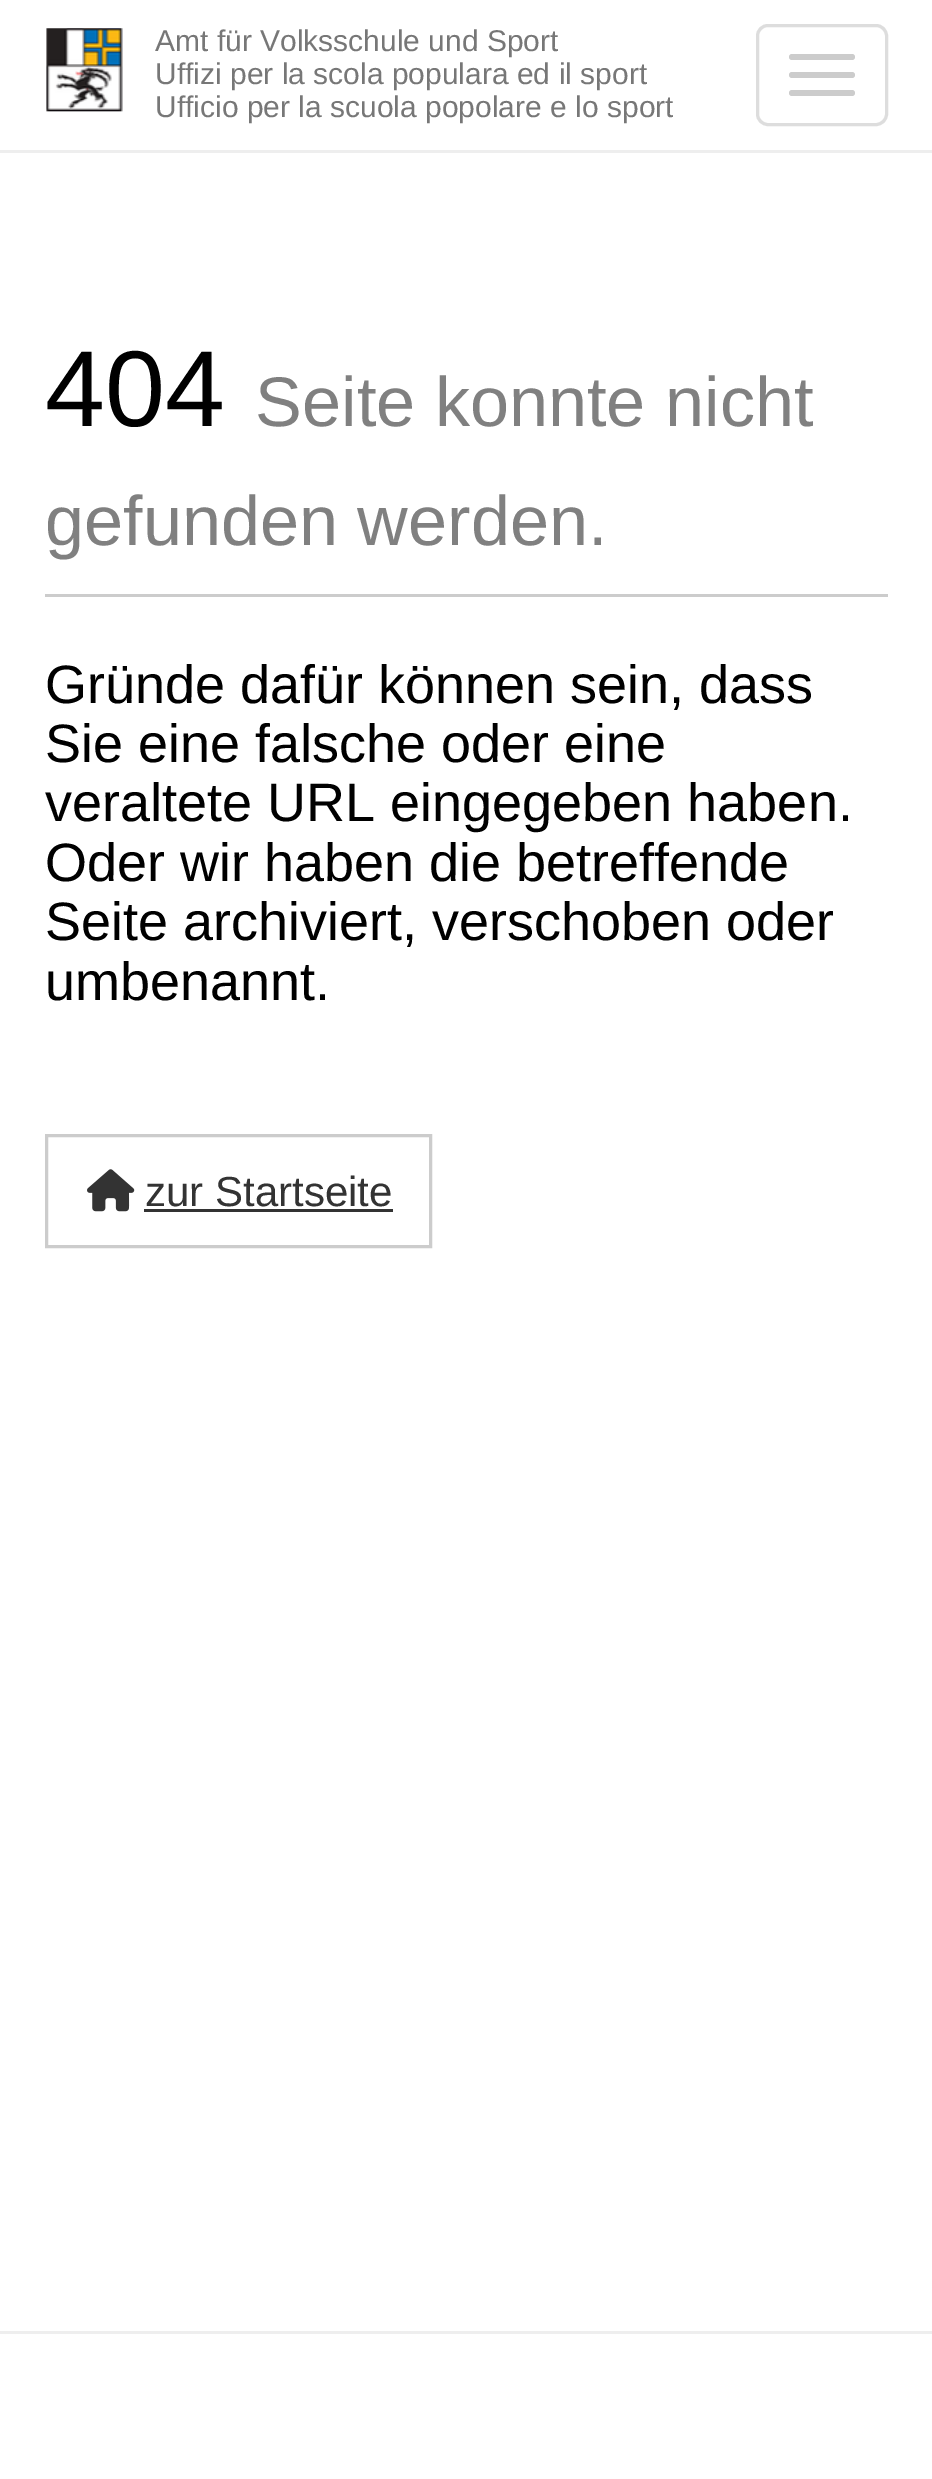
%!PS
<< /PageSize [932 2479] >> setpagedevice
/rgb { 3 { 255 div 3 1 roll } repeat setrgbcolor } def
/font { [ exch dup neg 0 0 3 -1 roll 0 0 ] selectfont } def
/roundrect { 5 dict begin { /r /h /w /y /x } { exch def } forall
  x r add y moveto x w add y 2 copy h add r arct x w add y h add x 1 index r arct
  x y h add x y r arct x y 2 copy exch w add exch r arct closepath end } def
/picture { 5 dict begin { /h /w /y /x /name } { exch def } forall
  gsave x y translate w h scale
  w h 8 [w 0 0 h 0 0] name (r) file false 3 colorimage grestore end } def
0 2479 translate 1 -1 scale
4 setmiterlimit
255 255 255 rgb
0 0 932 2479 rectfill
238 238 238 rgb
0 150 932 3 rectfill
(img/1.rgb) 46 28 77 84 picture
221 221 221 rgb
3 setlinewidth
757.5 25.5 129 99 10.5 roundrect stroke
204 204 204 rgb
789 54 66 6 3 roundrect fill
789 72 66 6 3 roundrect fill
789 90 66 6 3 roundrect fill
45 594 843 3 rectfill
46.5 1135.5 384 111 rectstroke
(img/2.rgb) 87 1169 48 43 picture
51 51 51 rgb
144 1209 249 3 rectfill
238 238 238 rgb
0 2331 932 3 rectfill
/LiberationSans-Regular 30 font
119 119 119 rgb
[
  [(Amt für Volksschule und Sport) 155 51]
  [(Uffizi per la scola populara ed il sport) 155 84]
  [(Ufficio per la scuola popolare e lo sport) 155 117]
] { aload pop moveto show } forall
/LiberationSans-Regular 108 font
0 0 0 rgb
45 426 moveto (404) show
/LiberationSans-Regular 70.25 font
128 128 128 rgb
255 426 moveto (Seite konnte nicht) show
45 545 moveto (gefunden werden.) show
/LiberationSans-Regular 54 font
0 0 0 rgb
[
  [(Gründe dafür können sein, dass) 45 703]
  [(Sie eine falsche oder eine) 45 762]
  [(veraltete URL eingegeben haben.) 45 821]
  [(Oder wir haben die betreffende) 45 881]
  [(Seite archiviert, verschoben oder) 45 940]
  [(umbenannt.) 45 1000]
] { aload pop moveto show } forall
/LiberationSans-Regular 42 font
51 51 51 rgb
145 1206 moveto (zur Startseite) show
showpage
